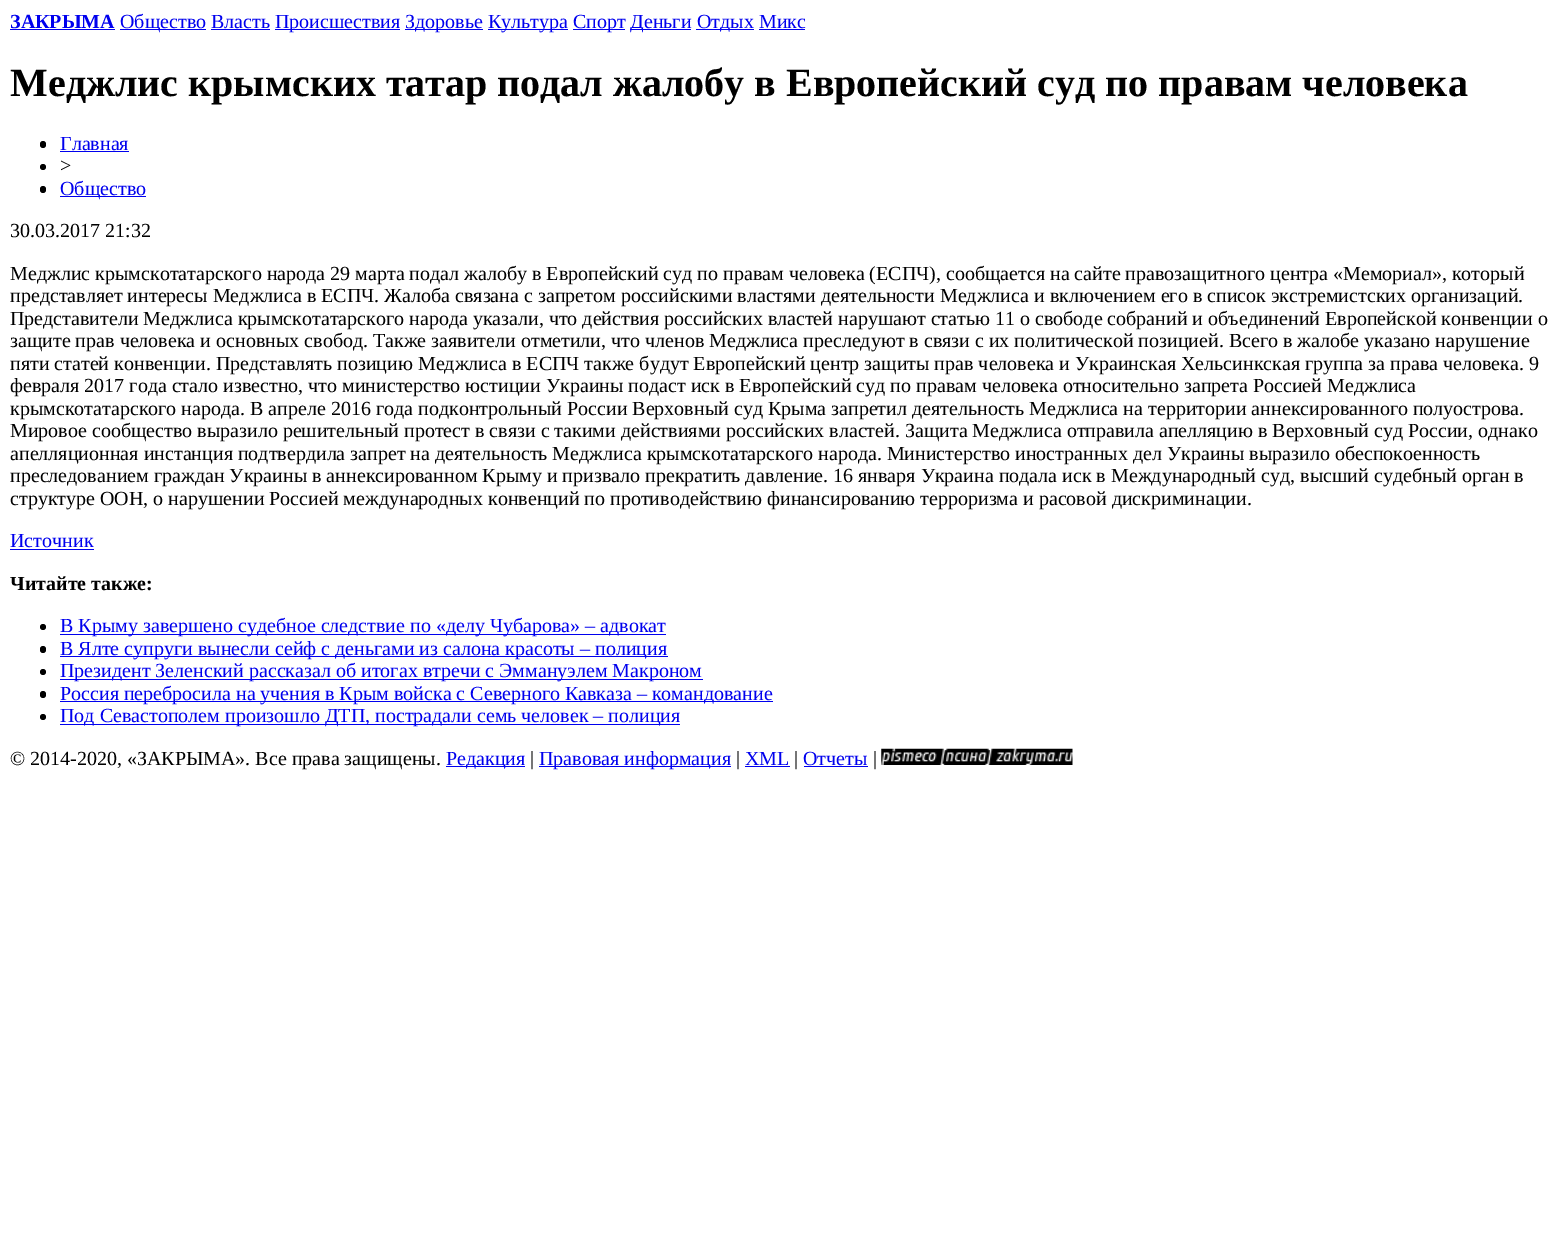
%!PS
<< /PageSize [1567 1255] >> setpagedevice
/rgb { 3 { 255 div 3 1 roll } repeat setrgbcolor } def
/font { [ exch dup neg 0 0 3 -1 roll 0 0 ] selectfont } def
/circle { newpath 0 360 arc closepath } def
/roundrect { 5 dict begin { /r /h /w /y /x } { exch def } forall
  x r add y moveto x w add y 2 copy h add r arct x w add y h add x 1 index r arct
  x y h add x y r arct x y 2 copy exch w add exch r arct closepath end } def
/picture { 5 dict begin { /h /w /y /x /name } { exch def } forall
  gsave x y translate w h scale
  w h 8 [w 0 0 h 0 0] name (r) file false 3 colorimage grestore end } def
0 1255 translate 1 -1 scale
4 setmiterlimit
255 255 255 rgb
0 0 1567 1255 rectfill
[
  [10 29 105 1 0 0 238]
  [120 29 86 1 0 0 238]
  [275 29 125 1 0 0 238]
  [405 29 78 1 0 0 238]
  [488 29 80 1 0 0 238]
  [573 29 52 1 0 0 238]
  [630 29 61 1 0 0 238]
  [696 29 58 1 0 0 238]
  [211 29 59 1 0 0 238]
  [759 29 46 1 0 0 238]
] { aload pop rgb rectfill } forall
0 0 0 rgb
40 141 6 7 3 roundrect fill
0 0 238 rgb
60 151 69 1 rectfill
0 0 0 rgb
43 167 3 circle fill
40 186 6 7 3 roundrect fill
0 0 238 rgb
60 196 86 1 rectfill
10 549 84 1 rectfill
0 0 0 rgb
43 627 3 circle fill
0 0 238 rgb
60 634 606 1 rectfill
0 0 0 rgb
40 646 6 7 3 roundrect fill
0 0 238 rgb
60 656 608 1 rectfill
0 0 0 rgb
43 672 3 circle fill
0 0 238 rgb
60 679 643 1 rectfill
0 0 0 rgb
40 691 6 7 3 roundrect fill
0 0 238 rgb
60 701 713 1 rectfill
0 0 0 rgb
43 717 3 circle fill
[
  [60 724 620 1 0 0 238]
  [446 766 79 1 0 0 238]
  [539 766 192 1 0 0 238]
  [745 766 45 1 0 0 238]
  [804 766 64 1 0 0 238]
] { aload pop rgb rectfill } forall
(img/1.rgb) 881 748 192 17 picture
/LiberationSerif-Bold 20 font
10 28 moveto (ЗАКРЫМА) show
/LiberationSerif-Regular 20 font
[
  [(Общество Власть) 120 28]
  [(Происшествия) 275 28]
  [(Здоровье) 405 28]
  [(Культура) 488 28]
  [(Спорт) 573 28]
  [(Деньги) 630 28]
  [(Отдых Микс) 697 28]
] { aload pop moveto show } forall
/LiberationSerif-Bold 40 font
0 0 0 rgb
10 96 moveto (Меджлис крымских татар подал жалобу в Европейский суд по правам человека) show
/LiberationSerif-Regular 20 font
0 0 238 rgb
60 150 moveto (Главная) show
0 0 0 rgb
60 172 moveto (>) show
0 0 238 rgb
60 195 moveto (Общество) show
0 0 0 rgb
[
  [(30.03.2017 21:32) 10 237]
  [(Меджлис крымскотатарского народа 29 марта подал жалобу в Европейский суд по правам человека \(ЕСПЧ\), сообщается на сайте правозащитного центра «Мемориал», который) 10 280]
  [(представляет интересы Меджлиса в ЕСПЧ. Жалоба связана с запретом российскими властями деятельности Меджлиса и включением его в список экстремистских организаций.) 10 302]
  [(Представители Меджлиса крымскотатарского народа указали, что действия российских властей нарушают статью 11 о свободе собраний и объединений Европейской конвенции о) 10 325]
  [(защите прав человека и основных свобод. Также заявители отметили, что членов Меджлиса преследуют в связи с их политической позицией. Всего в жалобе указано нарушение) 10 347]
  [(пяти статей конвенции. Представлять позицию Меджлиса в ЕСПЧ также будут Европейский центр защиты прав человека и Украинская Хельсинкская группа за права человека. 9) 10 370]
  [(февраля 2017 года стало известно, что министерство юстиции Украины подаст иск в Европейский суд по правам человека относительно запрета Россией Меджлиса) 10 392]
  [(крымскотатарского народа. В апреле 2016 года подконтрольный России Верховный суд Крыма запретил деятельность Меджлиса на территории аннексированного полуострова.) 10 415]
  [(Мировое сообщество выразило решительный протест в связи с такими действиями российских властей. Защита Меджлиса отправила апелляцию в Верховный суд России, однако) 10 437]
  [(апелляционная инстанция подтвердила запрет на деятельность Меджлиса крымскотатарского народа. Министерство иностранных дел Украины выразило обеспокоенность) 10 460]
  [(преследованием граждан Украины в аннексированном Крыму и призвало прекратить давление. 16 января Украина подала иск в Международный суд, высший судебный орган в) 10 482]
  [(структуре ООН, о нарушении Россией международных конвенций по противодействию финансированию терроризма и расовой дискриминации.) 10 505]
] { aload pop moveto show } forall
0 0 238 rgb
10 547 moveto (Источник) show
/LiberationSerif-Bold 20 font
0 0 0 rgb
10 590 moveto (Читайте также:) show
/LiberationSerif-Regular 20 font
0 0 238 rgb
[
  [(В Крыму завершено судебное следствие по «делу Чубарова» – адвокат) 60 632]
  [(В Ялте супруги вынесли сейф с деньгами из салона красоты – полиция) 60 655]
  [(Президент Зеленский рассказал об итогах втречи с Эммануэлем Макроном) 60 677]
  [(Россия перебросила на учения в Крым войска с Северного Кавказа – командование) 60 700]
  [(Под Севастополем произошло ДТП, пострадали семь человек – полиция) 60 722]
] { aload pop moveto show } forall
0 0 0 rgb
10 765 moveto (© 2014-2020, «ЗАКРЫМА». Все права защищены.) show
0 0 238 rgb
446 765 moveto (Редакция) show
0 0 0 rgb
530 765 moveto (|) show
0 0 238 rgb
539 765 moveto (Правовая информация) show
0 0 0 rgb
736 765 moveto (|) show
0 0 238 rgb
745 765 moveto (XML) show
0 0 0 rgb
794 765 moveto (|) show
0 0 238 rgb
803 765 moveto (Отчеты) show
0 0 0 rgb
873 765 moveto (|) show
showpage
